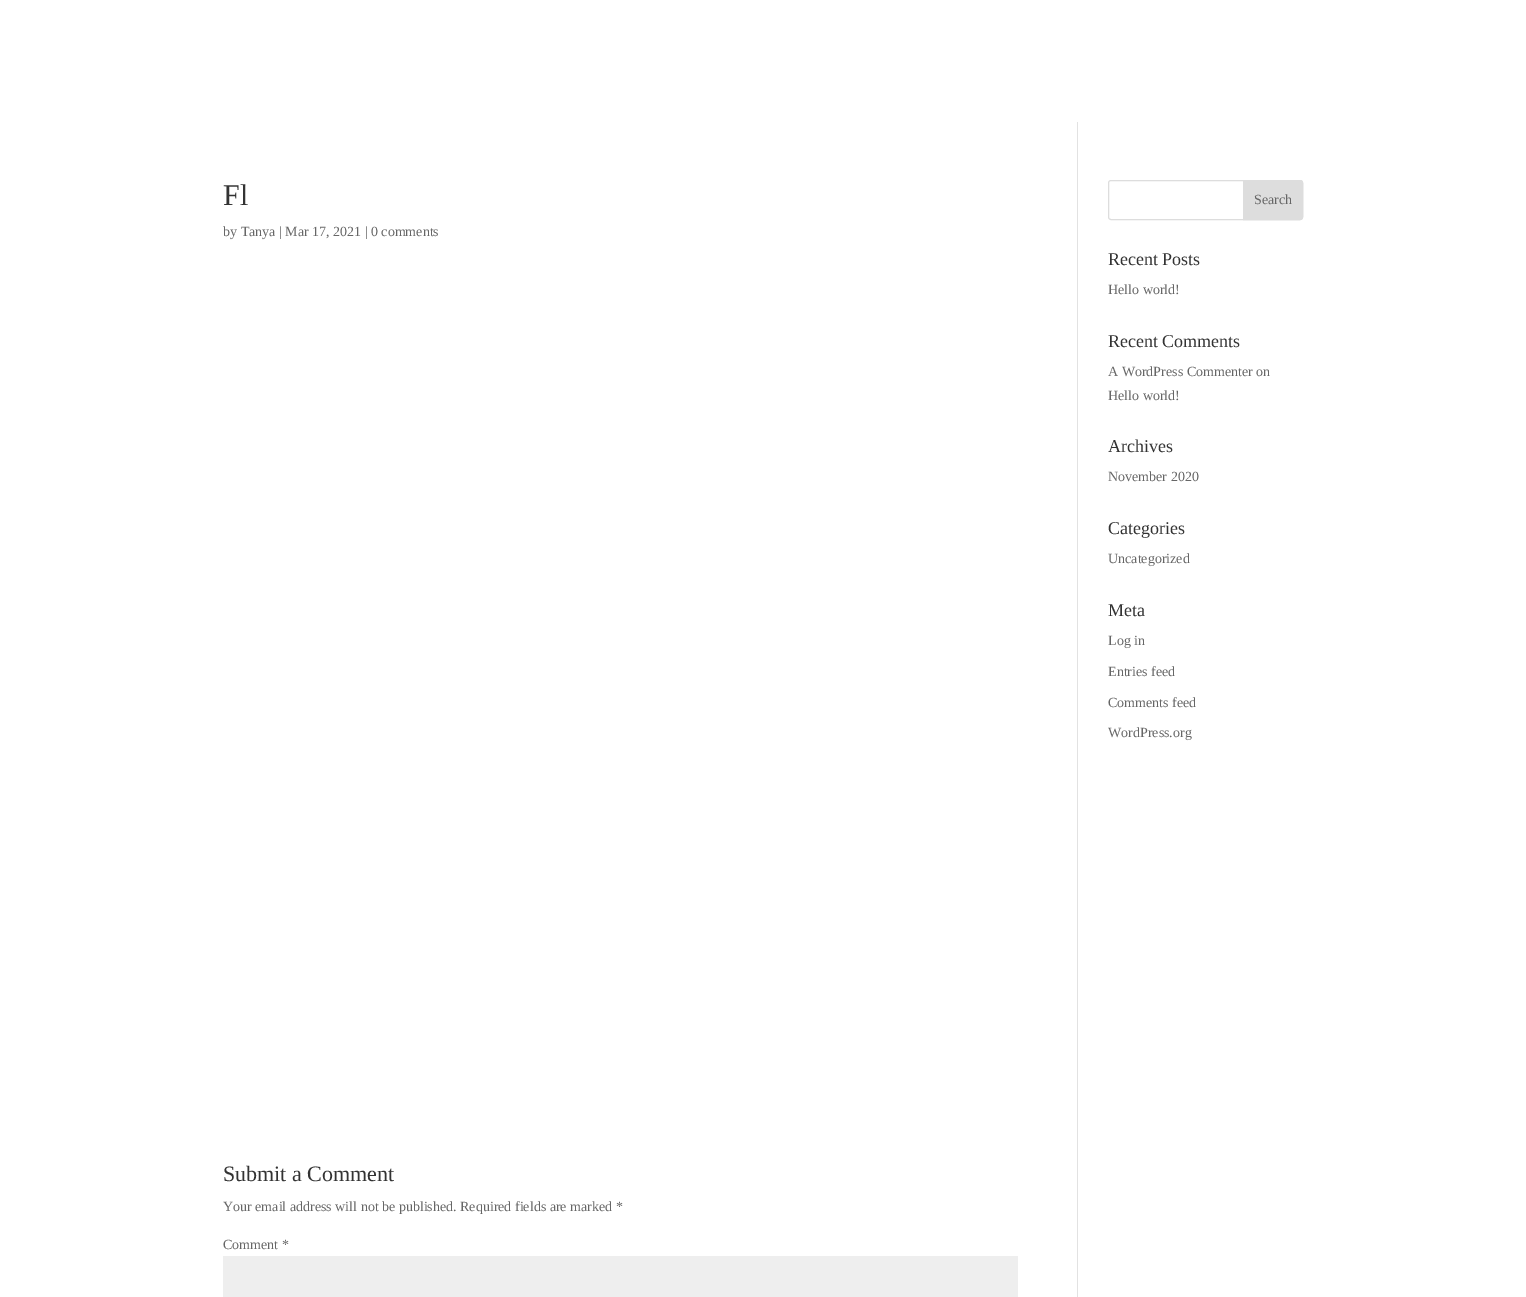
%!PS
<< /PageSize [1526 1297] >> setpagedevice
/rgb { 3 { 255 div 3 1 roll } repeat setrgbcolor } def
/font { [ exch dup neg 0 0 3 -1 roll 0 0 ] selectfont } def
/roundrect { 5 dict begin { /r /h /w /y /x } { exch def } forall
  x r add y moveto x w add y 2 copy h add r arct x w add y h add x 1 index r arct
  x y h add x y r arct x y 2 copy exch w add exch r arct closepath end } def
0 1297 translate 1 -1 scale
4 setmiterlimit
255 255 255 rgb
0 0 1526 1297 rectfill
226 226 226 rgb
1077 122 1 1175 rectfill
238 238 238 rgb
223 1256 795 41 rectfill
221 221 221 rgb
1108.5 180.5 194 39 2.5 roundrect stroke
1243.5 180.5 moveto 1300 180.5 lineto 1301.5 180.5 1302.5 181.5 1302.5 183 curveto 1302.5 217 lineto 1302.5 218.5 1301.5 219.5 1300 219.5 curveto 1243.5 219.5 lineto closepath gsave fill grestore
stroke
/LiberationSerif-Regular 30 font
51 51 51 rgb
223 205 moveto (Fl) show
/LiberationSerif-Regular 14 font
102 102 102 rgb
223 236 moveto (by Tanya | Mar 17, 2021 | 0 comments) show
/LiberationSerif-Regular 22 font
51 51 51 rgb
223 1181 moveto (Submit a Comment) show
/LiberationSerif-Regular 14 font
102 102 102 rgb
[
  [(Your email address will not be published. Required fields are marked *) 223 1211]
  [(Comment *) 223 1249]
  [(Search) 1254 204]
] { aload pop moveto show } forall
/LiberationSerif-Regular 18 font
51 51 51 rgb
1108 265 moveto (Recent Posts) show
/LiberationSerif-Regular 14 font
102 102 102 rgb
1108 294 moveto (Hello world!) show
/LiberationSerif-Regular 18 font
51 51 51 rgb
1108 347 moveto (Recent Comments) show
/LiberationSerif-Regular 14 font
102 102 102 rgb
1108 376 moveto (A WordPress Commenter on) show
1108 400 moveto (Hello world!) show
/LiberationSerif-Regular 18 font
51 51 51 rgb
1108 452 moveto (Archives) show
/LiberationSerif-Regular 14 font
102 102 102 rgb
1108 481 moveto (November 2020) show
/LiberationSerif-Regular 18 font
51 51 51 rgb
1108 534 moveto (Categories) show
/LiberationSerif-Regular 14 font
102 102 102 rgb
1108 563 moveto (Uncategorized) show
/LiberationSerif-Regular 18 font
51 51 51 rgb
1108 616 moveto (Meta) show
/LiberationSerif-Regular 14 font
102 102 102 rgb
[
  [(Log in) 1108 645]
  [(Entries feed) 1108 676]
  [(Comments feed) 1108 707]
  [(WordPress.org) 1108 737]
] { aload pop moveto show } forall
showpage
